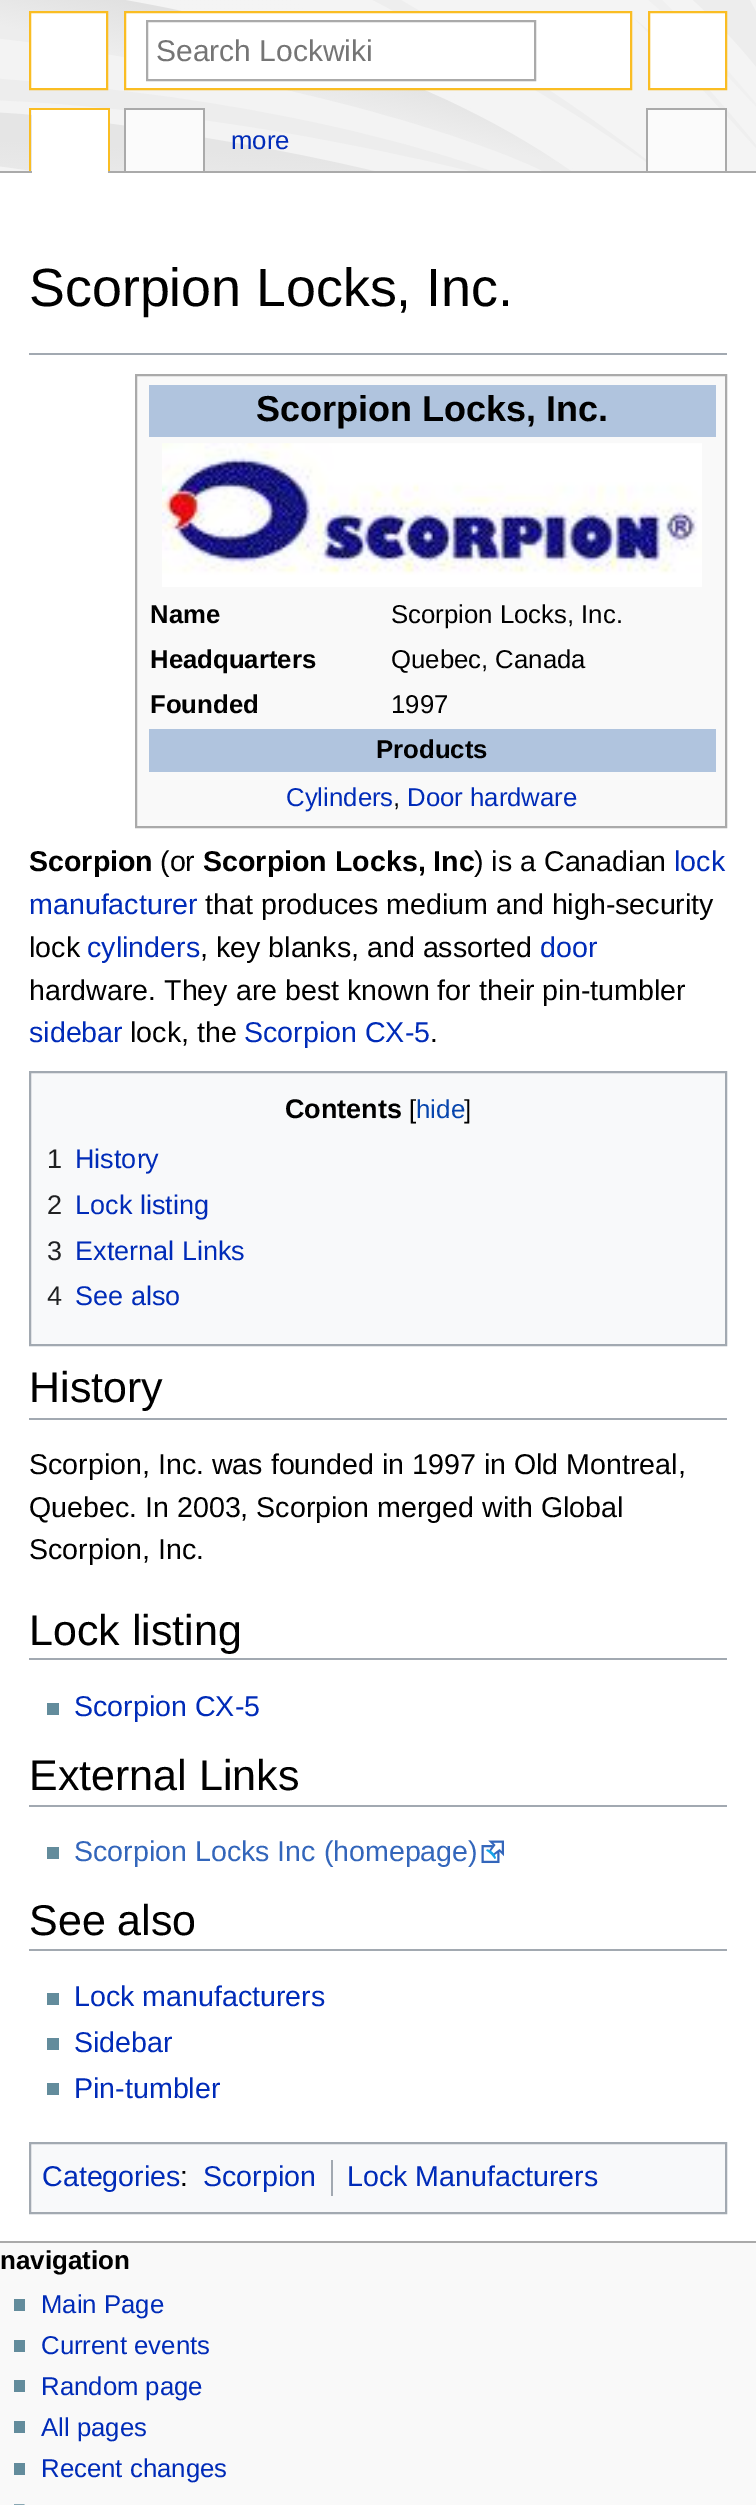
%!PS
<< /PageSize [756 2505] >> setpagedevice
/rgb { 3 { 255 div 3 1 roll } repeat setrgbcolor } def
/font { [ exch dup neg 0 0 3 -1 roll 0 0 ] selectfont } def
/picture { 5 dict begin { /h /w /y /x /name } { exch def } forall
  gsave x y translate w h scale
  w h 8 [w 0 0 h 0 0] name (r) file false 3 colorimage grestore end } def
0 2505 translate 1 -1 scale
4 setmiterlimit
249 249 249 rgb
0 0 756 2505 rectfill
(img/1.rgb) 0 0 756 171 picture
255 255 255 rgb
30 12 moveto 107 12 lineto 107 89 lineto 30 89 lineto closepath gsave fill grestore
250 189 35 rgb
2 setlinewidth
stroke
255 255 255 rgb
649 12 moveto 726 12 lineto 726 89 lineto 649 89 lineto closepath gsave fill grestore
250 189 35 rgb
stroke
255 255 255 rgb
125 12 moveto 631 12 lineto 631 89 lineto 125 89 lineto closepath gsave fill grestore
250 189 35 rgb
stroke
170 170 170 rgb
147 21 388 59 rectstroke
[
  [14 2299 11 12 99 140 156]
  [14 2340 11 12 99 140 156]
  [14 2380 11 12 99 140 156]
  [14 2421 11 12 99 140 156]
  [14 2463 11 12 99 140 156]
] { aload pop rgb rectfill } forall
(img/2.rgb) 14 2504 11 1 picture
[
  [29 108 81 2 250 189 35]
  [108 108 2 65 250 189 35]
  [29 108 2 65 250 189 35]
  [124 108 81 2 170 170 170]
  [203 108 2 65 170 170 170]
  [124 108 2 65 170 170 170]
  [646 108 81 2 170 170 170]
  [725 108 2 65 170 170 170]
  [646 108 2 65 170 170 170]
  [0 171 756 2 170 170 170]
  [32 110 76 63 255 255 255]
  [126 110 77 61 251 251 251]
  [648 110 77 61 251 251 251]
  [0 173 756 2068 255 255 255]
  [0 2241 756 2 170 170 170]
  [29 353 698 2 162 169 177]
] { aload pop rgb rectfill } forall
249 249 249 rgb
136 375 moveto 726 375 lineto 726 827 lineto 136 827 lineto closepath gsave fill grestore
170 170 170 rgb
stroke
176 196 222 rgb
149 385 567 52 rectfill
(img/3.rgb) 162 443 540 144 picture
149 729 567 43 rectfill
248 249 250 rgb
30 1072 moveto 726 1072 lineto 726 1345 lineto 30 1345 lineto closepath gsave fill grestore
162 169 177 rgb
stroke
[
  [29 1418 698 2 162 169 177]
  [29 1658 698 2 162 169 177]
  [47 1703 12 12 99 140 156]
  [29 1805 698 2 162 169 177]
  [47 1847 12 12 99 140 156]
] { aload pop rgb rectfill } forall
(img/4.rgb) 481 1840 23 24 picture
[
  [29 1949 698 2 162 169 177]
  [47 1993 12 12 99 140 156]
  [47 2038 12 12 99 140 156]
  [47 2083 12 12 99 140 156]
] { aload pop rgb rectfill } forall
248 249 250 rgb
30 2143 moveto 726 2143 lineto 726 2213 lineto 30 2213 lineto closepath gsave fill grestore
162 169 177 rgb
stroke
331 2160 2 36 rectfill
/LiberationSans-Regular 30 font
117 117 117 rgb
156 61 moveto (Search Lockwiki) show
/LiberationSans-Bold 26 font
0 0 0 rgb
0 2269 moveto (navigation) show
/LiberationSans-Regular 25.75 font
0 43 184 rgb
[
  [(Main Page) 41 2313]
  [(Current events) 41 2354]
  [(Random page) 41 2395]
  [(All pages) 41 2436]
  [(Recent changes) 41 2477]
  [(more) 231 149]
] { aload pop moveto show } forall
/LiberationSans-Regular 53.75 font
0 0 0 rgb
29 306 moveto (Scorpion Locks, Inc.) show
/LiberationSans-Bold 36 font
256 421 moveto (Scorpion Locks, Inc.) show
/LiberationSans-Bold 25.75 font
150 623 moveto (Name) show
/LiberationSans-Regular 25.75 font
391 623 moveto (Scorpion Locks, Inc.) show
/LiberationSans-Bold 25.75 font
150 668 moveto (Headquarters) show
/LiberationSans-Regular 25.75 font
391 668 moveto (Quebec, Canada) show
/LiberationSans-Bold 25.75 font
150 713 moveto (Founded) show
/LiberationSans-Regular 25.75 font
391 713 moveto (1997) show
/LiberationSans-Bold 25.75 font
376 758 moveto (Products) show
/LiberationSans-Regular 25.75 font
0 43 184 rgb
286 806 moveto (Cylinders) show
0 0 0 rgb
393 806 moveto (,) show
0 43 184 rgb
407 806 moveto (Door hardware) show
/LiberationSans-Bold 28.6 font
0 0 0 rgb
29 871 moveto (Scorpion) show
/LiberationSans-Regular 28.6 font
160 871 moveto (\(or) show
/LiberationSans-Bold 28.6 font
203 871 moveto (Scorpion Locks, Inc) show
/LiberationSans-Regular 28.6 font
474 871 moveto (\) is a Canadian) show
0 43 184 rgb
674 871 moveto (lock) show
29 914 moveto (manufacturer) show
0 0 0 rgb
205 914 moveto (that produces medium and high-security) show
29 957 moveto (lock) show
0 43 184 rgb
87 957 moveto (cylinders) show
0 0 0 rgb
200 957 moveto (, key blanks, and assorted) show
0 43 184 rgb
540 957 moveto (door) show
0 0 0 rgb
29 1000 moveto (hardware. They are best known for their pin-tumbler) show
0 43 184 rgb
29 1042 moveto (sidebar) show
0 0 0 rgb
130 1042 moveto (lock, the) show
0 43 184 rgb
244 1042 moveto (Scorpion CX-5) show
0 0 0 rgb
430 1042 moveto (.) show
/LiberationSans-Bold 27 font
285 1118 moveto (Contents) show
/LiberationSans-Regular 26 font
409 1118 moveto ([) show
6 69 173 rgb
416 1118 moveto (hide) show
0 0 0 rgb
464 1118 moveto (]) show
/LiberationSans-Regular 27 font
32 33 34 rgb
47 1168 moveto (1) show
0 43 184 rgb
75 1168 moveto (History) show
32 33 34 rgb
47 1214 moveto (2) show
0 43 184 rgb
75 1214 moveto (Lock listing) show
32 33 34 rgb
47 1260 moveto (3) show
0 43 184 rgb
75 1260 moveto (External Links) show
32 33 34 rgb
47 1305 moveto (4) show
0 43 184 rgb
75 1305 moveto (See also) show
/LiberationSans-Regular 43 font
0 0 0 rgb
29 1402 moveto (History) show
/LiberationSans-Regular 28.6 font
[
  [(Scorpion, Inc. was founded in 1997 in Old Montreal,) 29 1474]
  [(Quebec. In 2003, Scorpion merged with Global) 29 1517]
  [(Scorpion, Inc.) 29 1559]
] { aload pop moveto show } forall
/LiberationSans-Regular 43 font
29 1645 moveto (Lock listing) show
/LiberationSans-Regular 28.6 font
0 43 184 rgb
74 1716 moveto (Scorpion CX-5) show
/LiberationSans-Regular 43 font
0 0 0 rgb
29 1790 moveto (External Links) show
/LiberationSans-Regular 28.6 font
51 102 187 rgb
74 1861 moveto (Scorpion Locks Inc \(homepage\)) show
/LiberationSans-Regular 43 font
0 0 0 rgb
29 1935 moveto (See also) show
/LiberationSans-Regular 28.6 font
0 43 184 rgb
[
  [(Lock manufacturers) 74 2006]
  [(Sidebar) 74 2052]
  [(Pin-tumbler) 74 2098]
  [(Categories) 42 2186]
] { aload pop moveto show } forall
0 0 0 rgb
180 2186 moveto (:) show
0 43 184 rgb
203 2186 moveto (Scorpion) show
347 2186 moveto (Lock Manufacturers) show
showpage
